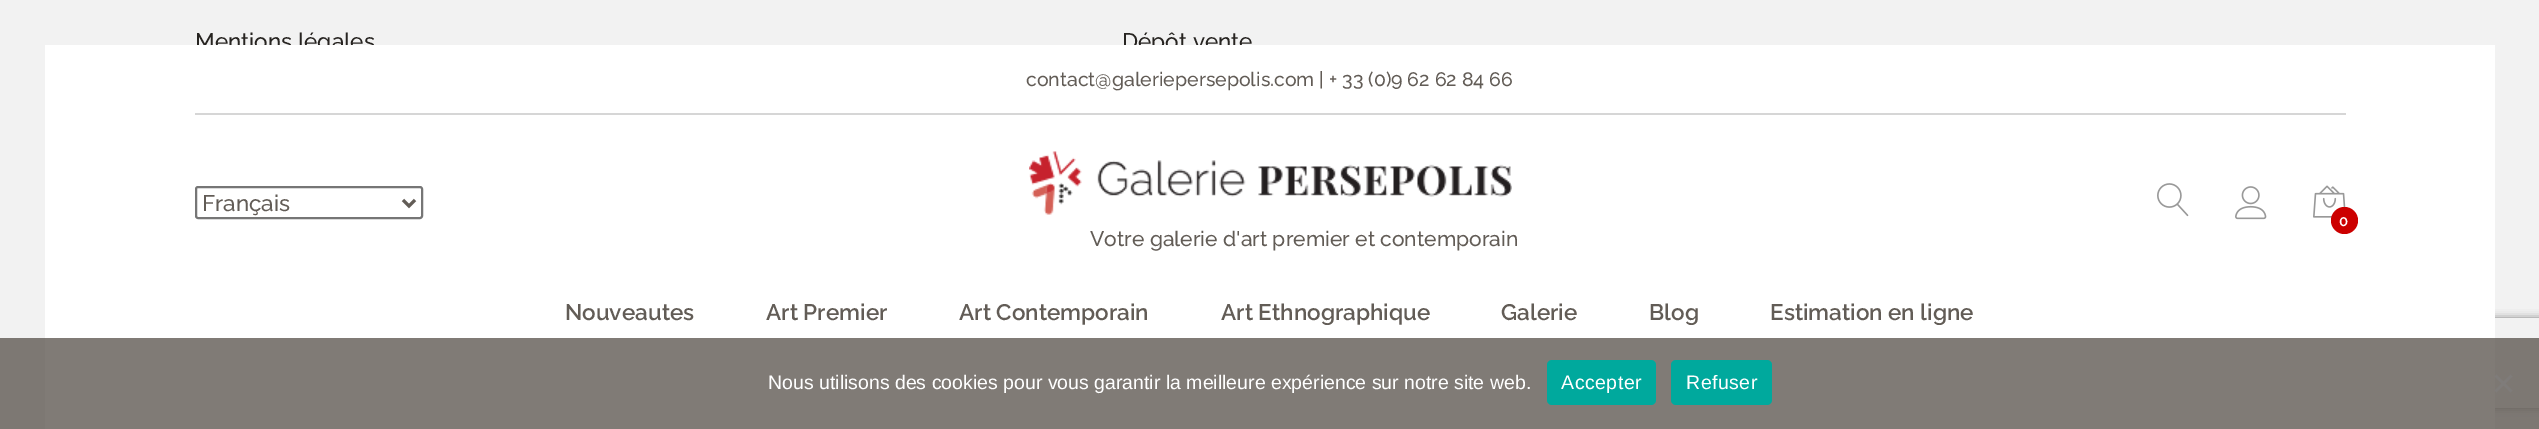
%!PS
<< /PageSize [2539 429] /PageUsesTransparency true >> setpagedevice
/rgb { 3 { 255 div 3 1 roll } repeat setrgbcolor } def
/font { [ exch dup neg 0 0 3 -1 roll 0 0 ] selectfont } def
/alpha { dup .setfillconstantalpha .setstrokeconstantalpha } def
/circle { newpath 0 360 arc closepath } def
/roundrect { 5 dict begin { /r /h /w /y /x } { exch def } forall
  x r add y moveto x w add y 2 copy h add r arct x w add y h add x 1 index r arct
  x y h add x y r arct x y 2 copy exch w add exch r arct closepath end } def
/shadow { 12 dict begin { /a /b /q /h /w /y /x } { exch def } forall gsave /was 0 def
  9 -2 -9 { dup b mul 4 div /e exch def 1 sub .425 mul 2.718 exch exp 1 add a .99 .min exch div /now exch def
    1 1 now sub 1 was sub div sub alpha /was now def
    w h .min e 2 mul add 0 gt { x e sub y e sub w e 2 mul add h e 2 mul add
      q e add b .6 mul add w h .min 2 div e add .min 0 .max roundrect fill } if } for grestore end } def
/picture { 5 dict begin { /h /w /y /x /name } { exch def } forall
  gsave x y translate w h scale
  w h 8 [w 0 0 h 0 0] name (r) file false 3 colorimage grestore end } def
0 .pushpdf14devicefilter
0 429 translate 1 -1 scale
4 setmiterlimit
242 242 242 rgb
0 0 2539 429 rectfill
gsave
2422 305 moveto 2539 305 lineto 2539 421 lineto 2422 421 lineto closepath 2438 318 moveto 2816 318 lineto 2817.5 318 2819 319.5 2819 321 curveto 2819 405 lineto 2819 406.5 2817.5 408 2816 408 curveto 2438 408 lineto 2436.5 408 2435 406.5 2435 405 curveto 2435 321 lineto 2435 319.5 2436.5 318 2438 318 curveto closepath eoclip newpath
128 128 128 rgb
2435 318 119 90 3 4 1 shadow
grestore
/Raleway-Thin 22.5 font
39 36 33 rgb
195 49 moveto (Mentions légales) show
1122 49 moveto (Dépôt vente) show
255 255 255 rgb
45 45 2450 384 rectfill
214 214 214 rgb
195 113 2151 2 rectfill
/Raleway-Thin 19.5 font
98 92 86 rgb
1026 86 moveto (contact@galeriepersepolis.com | + 33 \(0\)9 62 62 84 66) show
118 118 118 rgb
2 setlinewidth
196 187 226 31 2 roundrect stroke
98 92 86 rgb
3 setlinewidth
403 200 moveto 409 206 lineto 415 200 lineto stroke
/Raleway-Thin 22.5 font
202 211 moveto (Français) show
(img/1.rgb) 2157 183 32 34 picture
(img/2.rgb) 2235 186 32 34 picture
(img/3.rgb) 2313 185 33 33 picture
204 0 0 rgb
2344.5 220.5 13.5 circle fill
/Raleway-SemiBold 15 font
255 255 255 rgb
2339 226 moveto (0) show
(img/4.rgb) 1029 151 483 64 picture
/Raleway-Thin 21 font
98 92 86 rgb
1090 246 moveto (Votre galerie d'art premier et contemporain) show
/Raleway-SemiBold 22.5 font
[
  [(Nouveautes) 565 320]
  [(Art Premier) 766 320]
  [(Art Contemporain) 959 320]
  [(Art Ethnographique) 1221 320]
  [(Galerie) 1501 320]
  [(Blog) 1649 320]
  [(Estimation en ligne) 1770 320]
] { aload pop moveto show } forall
0.81 alpha
0 338 2539 91 rectfill
/LiberationSans-Regular 19.5 font
1 alpha
255 255 255 rgb
768 389 moveto (Nous utilisons des cookies pour vous garantir la meilleure expérience sur notre site web.) show
0 169 157 rgb
1547 360 109 45 5 roundrect fill
255 255 255 rgb
1561 389 moveto 0.5 0 (Accepter) ashow
0 169 157 rgb
1671 360 101 45 5 roundrect fill
255 255 255 rgb
1686 389 moveto 0.5 0 (Refuser) ashow
127 124 122 rgb
2510.5 374.5 moveto 2512.5 376.5 lineto 2496.5 392.5 lineto 2494.5 390.5 lineto closepath fill
2494.5 376.5 moveto 2496.5 374.5 lineto 2512.5 390.5 lineto 2510.5 392.5 lineto closepath fill
.poppdf14devicefilter showpage
